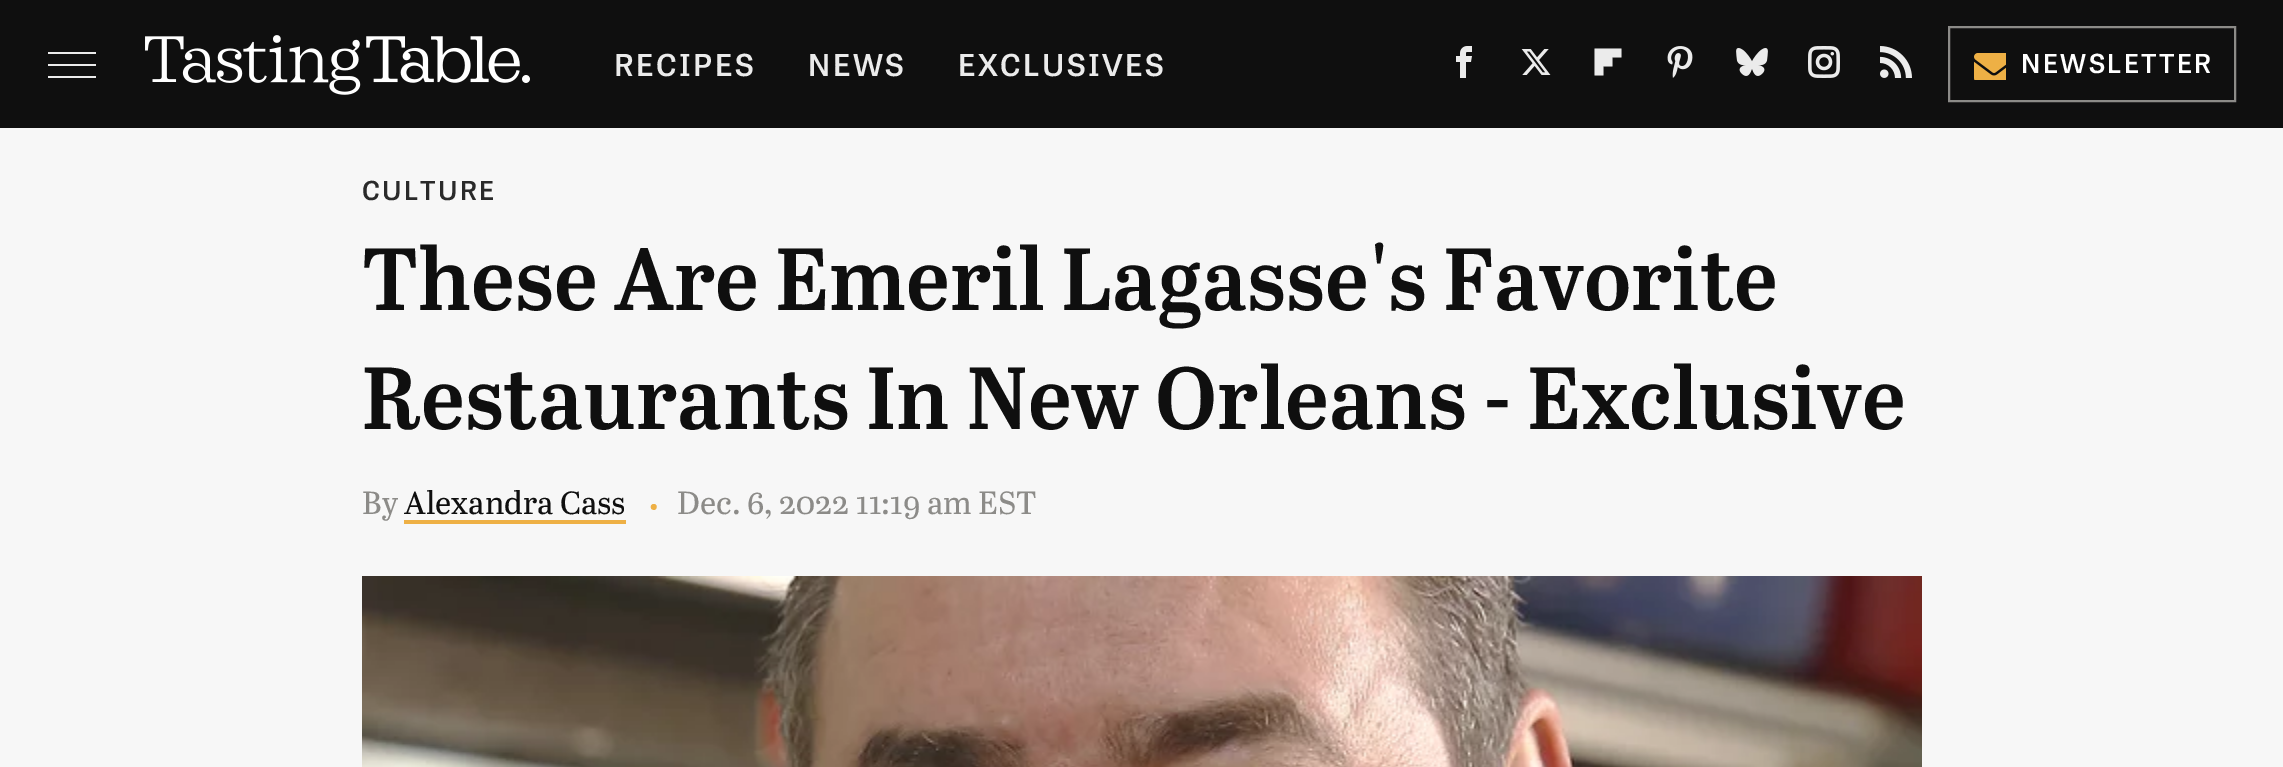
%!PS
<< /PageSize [2283 767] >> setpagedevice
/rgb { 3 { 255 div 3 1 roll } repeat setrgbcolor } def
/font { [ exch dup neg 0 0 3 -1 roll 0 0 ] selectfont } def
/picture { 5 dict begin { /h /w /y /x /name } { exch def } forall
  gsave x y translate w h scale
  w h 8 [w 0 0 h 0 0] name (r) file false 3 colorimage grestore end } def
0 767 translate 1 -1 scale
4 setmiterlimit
247 247 247 rgb
0 0 2283 767 rectfill
[
  [0 0 2283 128 15 15 15]
  [48 52 48 2 235 235 235]
  [48 64 48 2 235 235 235]
  [48 76 48 2 235 235 235]
] { aload pop rgb rectfill } forall
(img/1.rgb) 145 35 385 60 picture
(img/2.rgb) 1456 46 16 32 picture
(img/3.rgb) 1521 49 30 26 picture
1608 48.5 moveto 1621.5 48.5 lineto 1621.5 57.5 lineto 1612.5 57.5 lineto 1612.5 66.5 lineto 1603.5 66.5 lineto 1603.5 75.5 lineto 1594.5 75.5 lineto 1594.5 48.5 lineto closepath fill
(img/4.rgb) 1667 46 26 32 picture
(img/5.rgb) 1736 48 32 28 picture
(img/6.rgb) 1808 46 32 32 picture
(img/7.rgb) 1880 46 32 32 picture
140 139 136 rgb
2 setlinewidth
1949 27 286 74 rectstroke
(img/8.rgb) 1974 53 32 27 picture
238 176 69 rgb
404 520 222 4 rectfill
(img/9.rgb) 362 576 1560 191 picture
/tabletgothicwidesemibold-SemiBold 30 font
235 235 235 rgb
614 76 moveto 2.4 0 (RECIPES) ashow
808 76 moveto 2.4 0 (NEWS) ashow
958 76 moveto 2.4 0 (EXCLUSIVES) ashow
/tabletgothicwidesemibold-SemiBold 26 font
255 255 255 rgb
2021 73 moveto 2.4 0 (NEWSLETTER) ashow
42 42 42 rgb
362 200 moveto 2.4 0 (CULTURE) ashow
/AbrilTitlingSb-SemiBold 88 font
15 15 15 rgb
362 310 moveto (These Are Emeril Lagasse's Favorite) show
362 429 moveto (Restaurants In New Orleans - Exclusive) show
/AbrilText-Regular 32 font
140 139 136 rgb
362 514 moveto (By) show
15 15 15 rgb
404 514 moveto (Alexandra Cass) show
/AbrilText-Regular 28 font
238 176 69 rgb
649 515 moveto (•) show
/AbrilText-Regular 32 font
140 139 136 rgb
677 514 moveto (Dec. 6, 2022 11:19 am EST) show
showpage
